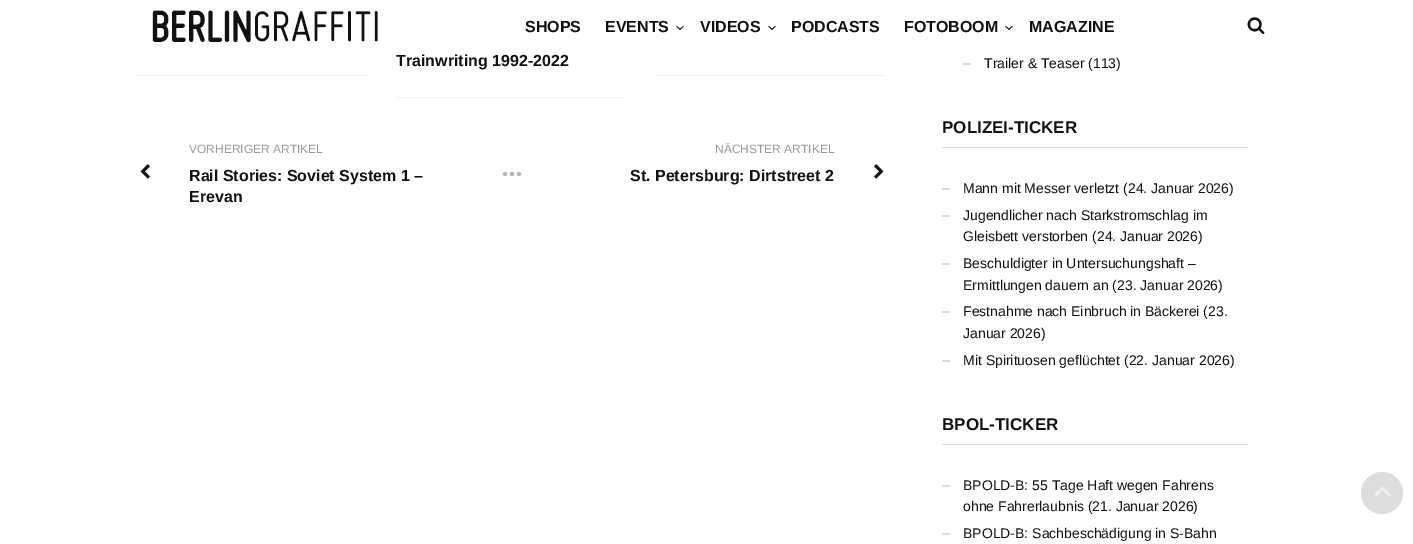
%!PS
<< /PageSize [1413 544] >> setpagedevice
/rgb { 3 { 255 div 3 1 roll } repeat setrgbcolor } def
/font { [ exch dup neg 0 0 3 -1 roll 0 0 ] selectfont } def
/circle { newpath 0 360 arc closepath } def
/picture { 5 dict begin { /h /w /y /x /name } { exch def } forall
  gsave x y translate w h scale
  w h 8 [w 0 0 h 0 0] name (r) file false 3 colorimage grestore end } def
0 544 translate 1 -1 scale
4 setmiterlimit
255 255 255 rgb
0 0 1413 544 rectfill
(img/1.rgb) 152 10 226 33 picture
(img/2.rgb) 676 25 8 5 picture
(img/2.rgb) 768 25 8 5 picture
(img/2.rgb) 1005 25 8 5 picture
[
  [396 97 229 1 241 241 241]
  [137 75 229 1 241 241 241]
  [656 75 229 1 241 241 241]
] { aload pop rgb rectfill } forall
(img/3.rgb) 140 164 10 15 picture
(img/4.rgb) 502 171 20 6 picture
(img/5.rgb) 874 164 10 15 picture
[
  [963 63 8 2 219 219 219]
  [942 147 305 1 219 219 219]
  [942 188 8 2 219 219 219]
  [942 215 8 2 219 219 219]
  [942 263 8 2 219 219 219]
  [942 311 8 2 219 219 219]
  [942 360 8 2 219 219 219]
  [942 444 305 1 219 219 219]
  [942 485 8 2 219 219 219]
  [942 533 8 2 219 219 219]
] { aload pop rgb rectfill } forall
221 221 221 rgb
1382 493 21 circle fill
(img/6.rgb) 1374 487 17 9 picture
/LiberationSans-Bold 16 font
17 17 17 rgb
[
  [(SHOPS) 525 32]
  [(EVENTS) 605 32]
  [(VIDEOS) 700 32]
  [(PODCASTS) 791 32]
  [(FOTOBOOM) 904 32]
  [(MAGAZINE) 1029 32]
] { aload pop moveto show } forall
/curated-Regular 18 font
1247 34 moveto (2) show
/LiberationSans-Bold 16 font
396 66 moveto (Trainwriting 1992-2022) show
/LiberationSans-Regular 12 font
154 154 154 rgb
189 153 moveto (VORHERIGER ARTIKEL) show
/LiberationSans-Bold 16 font
17 17 17 rgb
189 181 moveto (Rail Stories: Soviet System 1 –) show
189 202 moveto (Erevan) show
/LiberationSans-Regular 12 font
154 154 154 rgb
715 153 moveto (NÄCHSTER ARTIKEL) show
/LiberationSans-Bold 16 font
17 17 17 rgb
630 181 moveto (St. Petersburg: Dirtstreet 2) show
/LiberationSans-Regular 14 font
984 68 moveto (Trailer & Teaser \(113\)) show
/LiberationSans-Bold 17 font
942 133 moveto (POLIZEI-TICKER) show
/LiberationSans-Regular 14 font
[
  [(Mann mit Messer verletzt \(24. Januar 2026\)) 963 193]
  [(Jugendlicher nach Starkstromschlag im) 963 220]
  [(Gleisbett verstorben \(24. Januar 2026\)) 963 241]
  [(Beschuldigter in Untersuchungshaft –) 963 268]
  [(Ermittlungen dauern an \(23. Januar 2026\)) 963 290]
  [(Festnahme nach Einbruch in Bäckerei \(23.) 963 316]
  [(Januar 2026\)) 963 338]
  [(Mit Spirituosen geflüchtet \(22. Januar 2026\)) 963 365]
] { aload pop moveto show } forall
/LiberationSans-Bold 17 font
942 430 moveto (BPOL-TICKER) show
/LiberationSans-Regular 14 font
[
  [(BPOLD-B: 55 Tage Haft wegen Fahrens) 963 490]
  [(ohne Fahrerlaubnis \(21. Januar 2026\)) 963 511]
  [(BPOLD-B: Sachbeschädigung in S-Bahn) 963 538]
] { aload pop moveto show } forall
showpage
